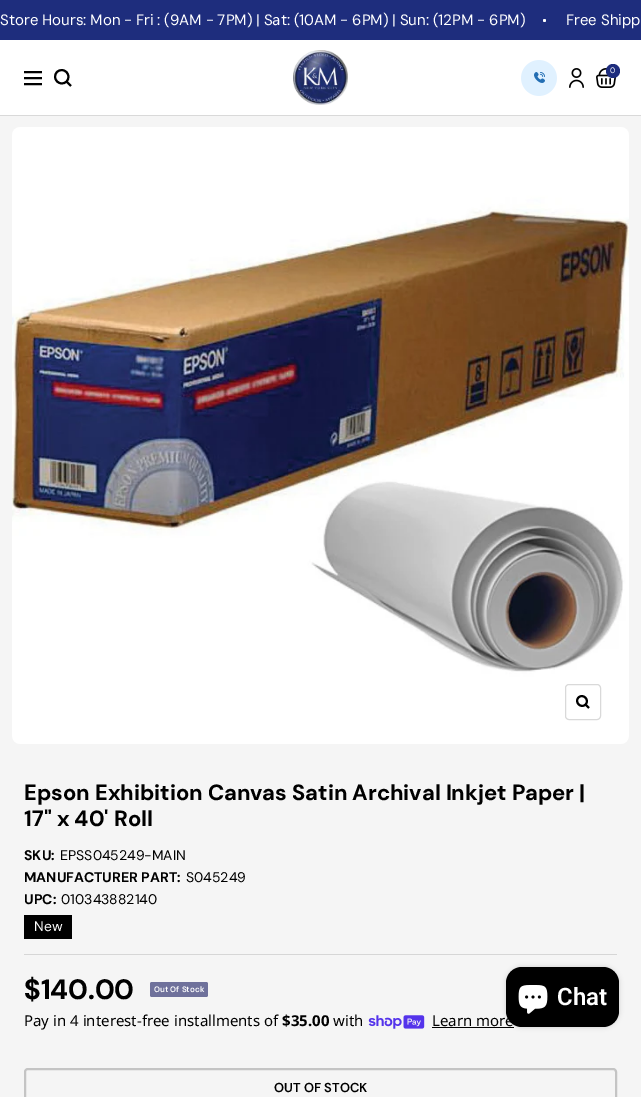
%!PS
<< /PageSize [641 1097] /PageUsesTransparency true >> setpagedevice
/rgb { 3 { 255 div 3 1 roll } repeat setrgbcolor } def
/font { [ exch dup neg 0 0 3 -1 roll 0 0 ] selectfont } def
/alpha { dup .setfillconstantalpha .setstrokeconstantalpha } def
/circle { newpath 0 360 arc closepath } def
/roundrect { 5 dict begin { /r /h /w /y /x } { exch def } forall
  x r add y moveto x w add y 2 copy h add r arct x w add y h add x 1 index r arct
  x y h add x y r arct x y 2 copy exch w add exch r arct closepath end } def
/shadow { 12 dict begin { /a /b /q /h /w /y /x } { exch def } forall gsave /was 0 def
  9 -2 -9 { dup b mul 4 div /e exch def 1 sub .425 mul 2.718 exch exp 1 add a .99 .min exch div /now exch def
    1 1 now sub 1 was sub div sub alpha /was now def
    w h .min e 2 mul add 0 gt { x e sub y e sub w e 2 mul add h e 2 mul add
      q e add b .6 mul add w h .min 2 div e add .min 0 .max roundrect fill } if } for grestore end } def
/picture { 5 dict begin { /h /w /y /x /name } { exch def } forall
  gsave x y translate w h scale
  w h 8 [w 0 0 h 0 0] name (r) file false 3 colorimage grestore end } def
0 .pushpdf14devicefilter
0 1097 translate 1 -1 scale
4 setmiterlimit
245 245 245 rgb
0 0 641 1097 rectfill
30 45 125 rgb
0 0 641 40 rectfill
255 255 255 rgb
544.5 20.5 1.5 circle fill
217 217 217 rgb
0 115 641 1 rectfill
255 255 255 rgb
0 40 641 75 rectfill
0 0 0 rgb
2 setlinewidth
24 72 moveto 42 72 lineto 24 84 moveto 42 84 lineto closepath 24 78 moveto 42 78 lineto closepath 66.5 81.5 moveto 72.5 75 63.5 66 57 72 curveto 51 78.5 60 87.5 66.5 81.5 curveto closepath 66.5 81.5 moveto 71 86 lineto stroke
(img/1.rgb) 293 50 55 55 picture
(img/2.rgb) 521 60 36 36 picture
(img/3.rgb) 569 68 15 20 picture
(img/4.rgb) 596 68 20 20 picture
30 45 125 rgb
613 71 7 circle fill
(img/5.rgb) 12 127 617 617 picture
217 217 217 rgb
1 setlinewidth
565.5 684.5 35 35 3.5 roundrect stroke
0 0 0 rgb
2 setlinewidth
585.5 704.5 moveto 590 700 583 693 578.5 697.5 curveto 574 702 581 709 585.5 704.5 curveto closepath 585.5 704.5 moveto 589 708 lineto stroke
214 214 214 rgb
24 954 593 1 rectfill
0 0 0 rgb
24 915 48 24 rectfill
111 113 155 rgb
150 982 58 15 2 roundrect fill
(img/6.rgb) 368 1015 57 14 picture
0 0 0 rgb
432 1027 82 1 rectfill
196 196 196 rgb
25 1069 591 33 3 roundrect stroke
0 0 0 rgb
506 967 113 60 16 2.5 0.15 shadow
506 967 113 60 16 roundrect fill
(img/7.rgb) 518 985 30 29 picture
/DMSans-Regular 15 font
255 255 255 rgb
0 25 moveto -0.2 0 32 (Store Hours: Mon - Fri : \(9AM - 7PM\) | Sat: \(10AM - 6PM\) | Sun: \(12PM - 6PM\)) widthshow
566 25 moveto (Free Shipp) show
/DMSans-Regular 8 font
610 73 moveto (0) show
/DMSans-Bold 22 font
0 0 0 rgb
24 800 moveto (Epson Exhibition Canvas Satin Archival Inkjet Paper |) show
24 826 moveto (17" x 40' Roll) show
/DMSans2-Bold 14 font
24 860 moveto (SKU:) show
/DMSans-Regular 14 font
60 860 moveto (EPSS045249-MAIN) show
/DMSans2-Bold 14 font
24 882 moveto (MANUFACTURER PART:) show
/DMSans-Regular 14 font
186 882 moveto (S045249) show
/DMSans2-Bold 14 font
24 904 moveto (UPC:) show
/DMSans-Regular 14 font
61 904 moveto (010343882140) show
/DMSans2-Regular 14 font
255 255 255 rgb
34 931 moveto (New) show
/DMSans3-Bold 28 font
0 0 0 rgb
24 999 moveto ($140.00) show
/DMSans-SemiBold 8 font
255 255 255 rgb
154 992 moveto (Out Of Stock) show
/NotoSans-Regular 15 font
0 0 0 rgb
24 1026 moveto (Pay in 4 interest-free installments of) show
/NotoSans-Bold 15 font
282 1026 moveto ($35.00) show
/NotoSans-Regular 15 font
333 1026 moveto (with) show
432 1026 moveto (Learn more) show
/DMSans2-SemiBold 13 font
274 1092 moveto (OUT OF STOCK) show
/Roboto-SemiBold 24 font
255 255 255 rgb
557 1005 moveto (Chat) show
.poppdf14devicefilter showpage
